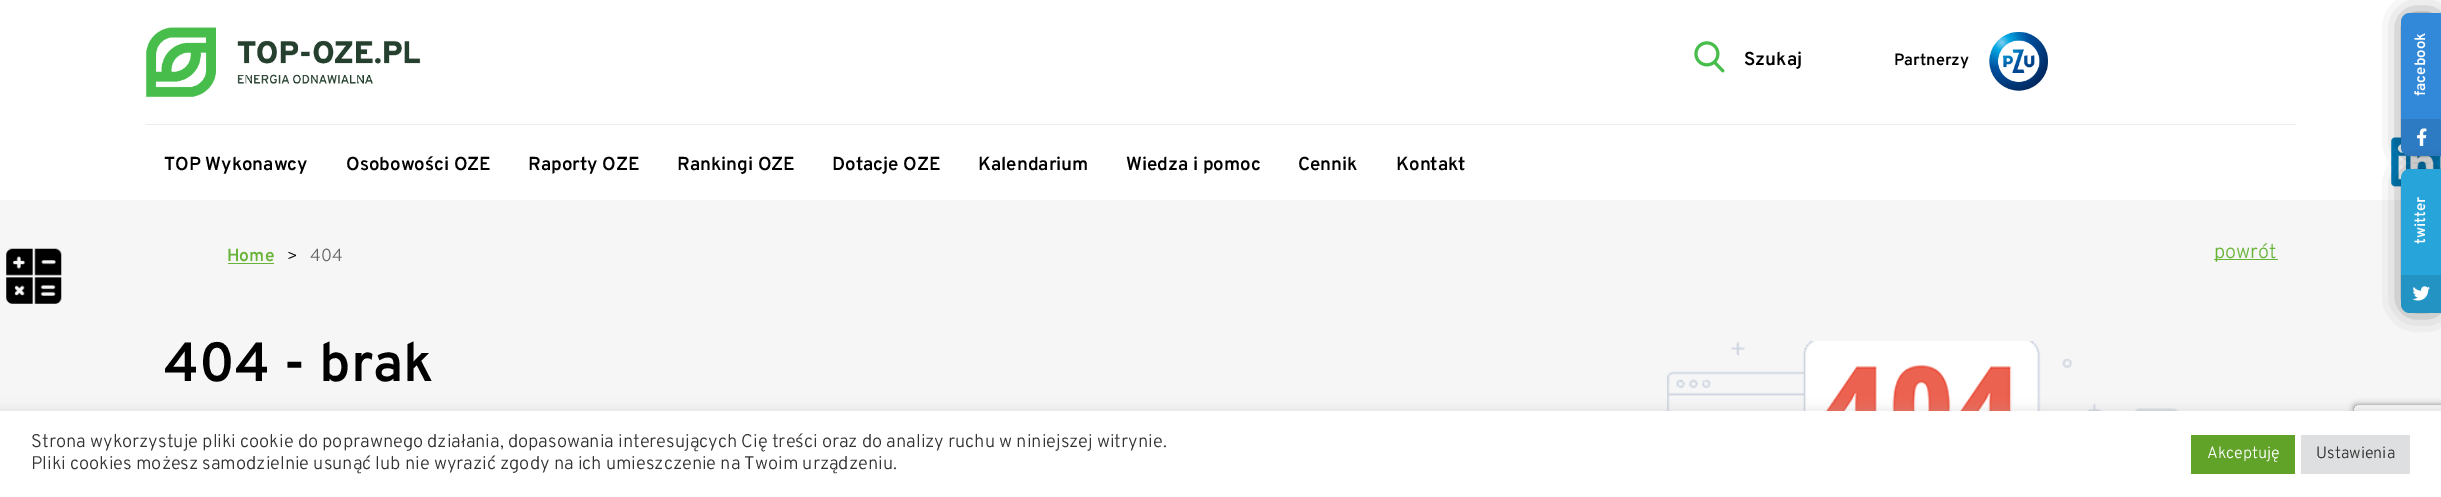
%!PS
<< /PageSize [2441 497] /PageUsesTransparency true >> setpagedevice
/rgb { 3 { 255 div 3 1 roll } repeat setrgbcolor } def
/font { [ exch dup neg 0 0 3 -1 roll 0 0 ] selectfont } def
/alpha { dup .setfillconstantalpha .setstrokeconstantalpha } def
/roundrect { 5 dict begin { /r /h /w /y /x } { exch def } forall
  x r add y moveto x w add y 2 copy h add r arct x w add y h add x 1 index r arct
  x y h add x y r arct x y 2 copy exch w add exch r arct closepath end } def
/shadow { 12 dict begin { /a /b /q /h /w /y /x } { exch def } forall gsave /was 0 def
  9 -2 -9 { dup b mul 4 div /e exch def 1 sub .425 mul 2.718 exch exp 1 add a .99 .min exch div /now exch def
    1 1 now sub 1 was sub div sub alpha /was now def
    w h .min e 2 mul add 0 gt { x e sub y e sub w e 2 mul add h e 2 mul add
      q e add b .6 mul add w h .min 2 div e add .min 0 .max roundrect fill } if } for grestore end } def
/picture { 5 dict begin { /h /w /y /x /name } { exch def } forall
  gsave x y translate w h scale
  w h 8 [w 0 0 h 0 0] name (r) file false 3 colorimage grestore end } def
0 .pushpdf14devicefilter
0 497 translate 1 -1 scale
4 setmiterlimit
246 246 246 rgb
0 0 2441 497 rectfill
255 255 255 rgb
0 0 2441 200 rectfill
(img/6.rgb) 2391 137 50 50 picture
0 0 0 rgb
2410 21 23 127 0 12.5 1 shadow
50 137 217 rgb
2410 13 moveto 2441 13 lineto 2441 156 lineto 2410 156 lineto 2405 156 2401 152 2401 147 curveto 2401 22 lineto 2401 17 2405 13 2410 13 curveto closepath fill
0.1 alpha
0 0 0 rgb
2401 119 moveto 2441 119 lineto 2441 156 lineto 2410 156 lineto 2405 156 2401 152 2401 147 curveto closepath fill
1 alpha
(img/1.rgb) 2417 128 10 18 picture
2410 178 23 126 0 12.5 1 shadow
39 164 217 rgb
2410 169 moveto 2441 169 lineto 2441 313 lineto 2410 313 lineto 2405 313 2401 309 2401 304 curveto 2401 178 lineto 2401 173 2405 169 2410 169 curveto closepath fill
0.1 alpha
0 0 0 rgb
2401 275 moveto 2441 275 lineto 2441 313 lineto 2410 313 lineto 2405 313 2401 309 2401 304 curveto closepath fill
1 alpha
(img/2.rgb) 2412 286 18 15 picture
(img/8.rgb) 1666 341 513 70 picture
172 171 171 rgb
0 410 2441 86 0 6 0.3 shadow
gsave
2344 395 moveto 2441 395 lineto 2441 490 lineto 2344 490 lineto closepath 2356.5 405 moveto 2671.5 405 lineto 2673 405 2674 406 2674 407.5 curveto 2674 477.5 lineto 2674 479 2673 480 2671.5 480 curveto 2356.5 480 lineto 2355 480 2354 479 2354 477.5 curveto 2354 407.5 lineto 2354 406 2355 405 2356.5 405 curveto closepath eoclip newpath
128 128 128 rgb
2354 405 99 75 2.5 3 1 shadow
grestore
[
  [0 411 2441 86 255 255 255]
  [2191 435 104 39 97 162 41]
  [2301 435 109 39 222 223 224]
  [146 124 2150 1 235 236 236]
] { aload pop rgb rectfill } forall
(img/3.rgb) 145 27 276 71 picture
(img/4.rgb) 1694 41 31 32 picture
(img/5.rgb) 1989 32 59 59 picture
104 180 56 rgb
228 263 46 1 rectfill
2214 259 64 1 rectfill
(img/7.rgb) 6 248 56 56 picture
/Overpass-SemiBold 15 font
255 255 255 rgb
gsave 2425 96 translate -90 rotate 0 0 moveto (facebook) show grestore
gsave 2425 244 translate -90 rotate 0 0 moveto (twitter) show grestore
/Overpass-Light 18.33 font
51 51 51 rgb
31 447 moveto (Strona wykorzystuje pliki cookie do poprawnego działania, dopasowania interesujących Cię treści oraz do analizy ruchu w niniejszej witrynie.) show
31 469 moveto (Pliki cookies możesz samodzielnie usunąć lub nie wyrazić zgody na ich umieszczenie na Twoim urządzeniu.) show
/Overpass-Light 16.25 font
255 255 255 rgb
2207 458 moveto (Akceptuję) show
51 51 51 rgb
2316 458 moveto (Ustawienia) show
/Overpass-SemiBold 18.75 font
0 0 0 rgb
1744 65 moveto (Szukaj) show
/Overpass-SemiBold 16.25 font
1894 65 moveto (Partnerzy) show
/Overpass-SemiBold 18.75 font
[
  [(TOP Wykonawcy) 164 170]
  [(Osobowości OZE) 346 170]
  [(Raporty OZE) 528 170]
  [(Rankingi OZE) 677 170]
  [(Dotacje OZE) 832 170]
  [(Kalendarium) 978 170]
  [(Wiedza i pomoc) 1126 170]
  [(Cennik) 1298 170]
  [(Kontakt) 1396 170]
] { aload pop moveto show } forall
/Overpass-SemiBold 17.5 font
104 180 56 rgb
227 261 moveto (Home) show
/Overpass-Light 16.25 font
0 0 0 rgb
287 261 moveto (>) show
/Overpass-Light 17.5 font
102 102 102 rgb
310 261 moveto (404) show
/Overpass-Light 20 font
104 180 56 rgb
2214 258 moveto (powrót) show
/Overpass-SemiBold 55 font
0 0 0 rgb
164 381 moveto (404 - brak) show
.poppdf14devicefilter showpage
